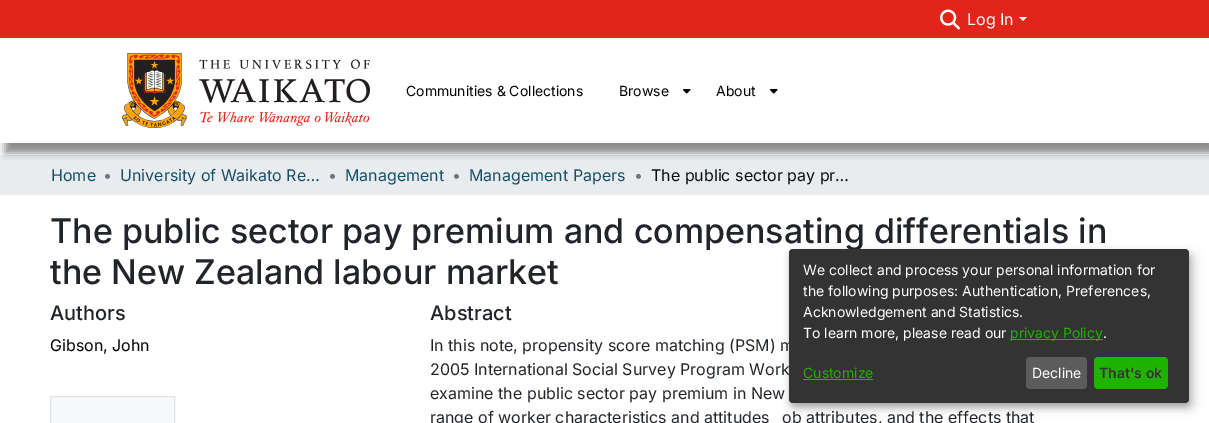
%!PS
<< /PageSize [1209 423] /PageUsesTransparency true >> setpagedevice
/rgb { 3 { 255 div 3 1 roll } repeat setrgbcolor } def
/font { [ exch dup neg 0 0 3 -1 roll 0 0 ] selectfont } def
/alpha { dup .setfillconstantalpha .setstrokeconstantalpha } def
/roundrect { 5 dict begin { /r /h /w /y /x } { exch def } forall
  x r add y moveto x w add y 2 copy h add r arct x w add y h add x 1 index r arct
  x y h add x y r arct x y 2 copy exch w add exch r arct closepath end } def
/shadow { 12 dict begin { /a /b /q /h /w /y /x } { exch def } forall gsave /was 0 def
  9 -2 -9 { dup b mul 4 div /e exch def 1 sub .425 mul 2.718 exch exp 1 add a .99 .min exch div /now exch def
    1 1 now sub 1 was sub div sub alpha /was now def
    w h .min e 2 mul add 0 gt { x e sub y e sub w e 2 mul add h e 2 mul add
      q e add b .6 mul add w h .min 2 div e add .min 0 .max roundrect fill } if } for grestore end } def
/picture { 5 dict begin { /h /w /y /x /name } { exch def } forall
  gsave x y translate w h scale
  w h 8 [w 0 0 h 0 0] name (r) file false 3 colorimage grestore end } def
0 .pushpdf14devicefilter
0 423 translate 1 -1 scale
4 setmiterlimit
255 255 255 rgb
0 0 1209 423 rectfill
233 236 239 rgb
0 155 1209 40 rectfill
gsave
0 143 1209 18 rectclip
136 136 136 rgb
5 48 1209 105 0 4 1 shadow
grestore
225 37 27 rgb
0 0 1209 38 rectfill
(img/1.rgb) 940 9 20 21 picture
255 255 255 rgb
1019 17 moveto 1027 17 lineto 1023 21 lineto closepath fill
(img/2.rgb) 122 53 248 75 picture
(img/3.rgb) 683 89 8 5 picture
(img/3.rgb) 770 89 8 5 picture
248 249 250 rgb
50.5 396.5 moveto 174.5 396.5 lineto 174.5 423.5 lineto 50.5 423.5 lineto closepath gsave fill grestore
222 226 230 rgb
stroke
0 0 0 rgb
794 254 400 154 4 5 0.19 shadow
789 253 400 154 4 3 0.2 shadow
/Inter-Regular 16 font
255 255 255 rgb
967 25 moveto (Log In) show
/Inter-Regular 14 font
0 0 0 rgb
[
  [(Communities & Collections) 406 96]
  [(Browse) 619 96]
  [(About) 716 96]
] { aload pop moveto show } forall
/Inter-Regular 16 font
21 78 102 rgb
51 181 moveto (Home) show
108 117 125 rgb
103 181 moveto (•) show
21 78 102 rgb
120 181 moveto (University of Waikato Re…) show
108 117 125 rgb
328 181 moveto (•) show
21 78 102 rgb
345 181 moveto (Management) show
108 117 125 rgb
452 181 moveto (•) show
21 78 102 rgb
469 181 moveto (Management Papers) show
108 117 125 rgb
634 181 moveto (•) show
4 13 17 rgb
651 181 moveto (The public sector pay pr…) show
/Inter-Medium 34 font
33 37 41 rgb
50 243 moveto (The public sector pay premium and compensating differentials in) show
50 284 moveto (the New Zealand labour market) show
/Inter-Medium 20 font
50 320 moveto (Authors) show
/Inter-Regular 16 font
0 0 0 rgb
50 351 moveto (Gibson, John) show
/Inter-Medium 20 font
33 37 41 rgb
430 320 moveto (Abstract) show
/Inter-Regular 16 font
[
  [(In this note, propensity score matching \(PSM\) m) 430 351]
  [(2005 International Social Survey Program Work) 430 375]
  [(examine the public sector pay premium in New) 430 399]
  [(range of worker characteristics and attitudes) 430 423]
  [(ob attributes, and the effects that) 782 423]
] { aload pop moveto show } forall
51 51 51 rgb
789 249 400 154 4 roundrect fill
/Inter-Regular 14 font
255 255 255 rgb
[
  [(We collect and process your personal information for) 803 275]
  [(the following purposes: Authentication, Preferences,) 803 296]
  [(Acknowledgement and Statistics.) 803 317]
  [(To learn more, please read our) 803 338]
  [(.) 1103 338]
] { aload pop moveto show } forall
31 179 0 rgb
1010 339 93 1 rectfill
1010 338 moveto (privacy Policy) show
803 378 moveto (Customize) show
803 379 70 1 rectfill
92 92 92 rgb
1026 357 61 32 4 roundrect fill
255 255 255 rgb
1032 378 moveto (Decline) show
31 179 0 rgb
1094 357 74 32 4 roundrect fill
/Inter-SemiBold 14 font
51 51 51 rgb
1099 378 moveto (That's ok) show
.poppdf14devicefilter showpage
